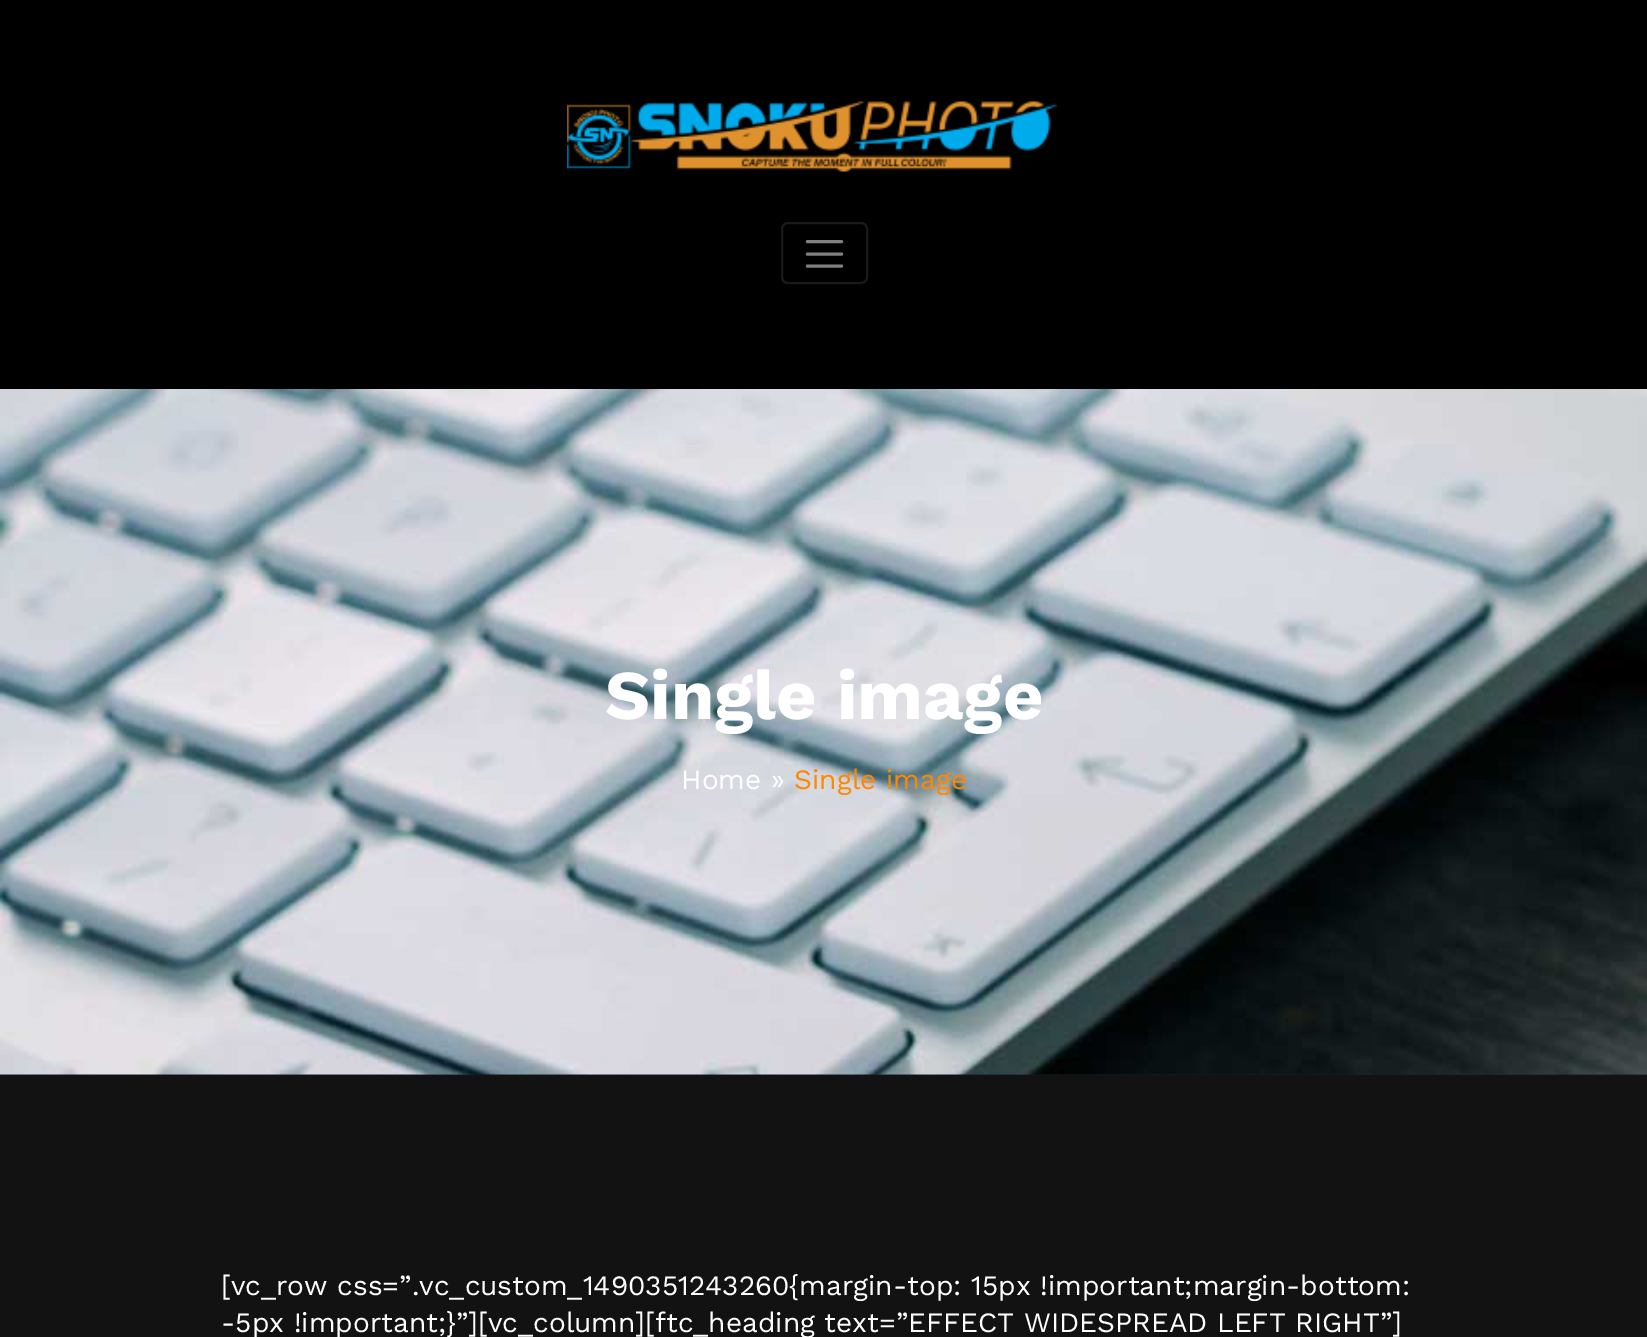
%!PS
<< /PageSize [1647 1337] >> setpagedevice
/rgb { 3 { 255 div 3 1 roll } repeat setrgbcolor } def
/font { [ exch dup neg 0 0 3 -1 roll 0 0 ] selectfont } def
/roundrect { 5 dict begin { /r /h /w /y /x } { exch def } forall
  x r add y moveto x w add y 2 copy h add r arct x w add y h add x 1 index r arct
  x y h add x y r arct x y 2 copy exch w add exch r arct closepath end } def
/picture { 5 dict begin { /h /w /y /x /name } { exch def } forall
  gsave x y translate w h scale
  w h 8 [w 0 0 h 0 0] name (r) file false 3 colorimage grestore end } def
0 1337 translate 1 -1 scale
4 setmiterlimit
18 18 18 rgb
0 0 1647 1337 rectfill
0 0 0 rgb
0 0 1647 389 rectfill
(img/1.rgb) 567 101 490 71 picture
26 26 26 rgb
2 setlinewidth
782 223 85 60 6 roundrect stroke
128 128 128 rgb
3.1 setlinewidth
1 setlinecap
807.5 241.5 moveto 841.5 241.5 lineto 807.5 254 moveto 841.5 254 lineto 807.5 266 moveto 841.5 266 lineto stroke
23 33 44 rgb
0 1074 1647 1 rectfill
(img/2.rgb) 0 389 1647 686 picture
/WorkSans-Bold 70 font
255 255 255 rgb
605 719 moveto (Single image) show
/WorkSans-Regular 28 font
681 789 moveto (Home ») show
255 136 0 rgb
794 789 moveto (Single image) show
255 255 255 rgb
221 1295 moveto ([vc_row css=”.vc_custom_1490351243260{margin-top: 15px !important;margin-bottom:) show
221 1332 moveto (-5px !important;}”][vc_column][ftc_heading text=”EFFECT WIDESPREAD LEFT RIGHT”]) show
showpage
